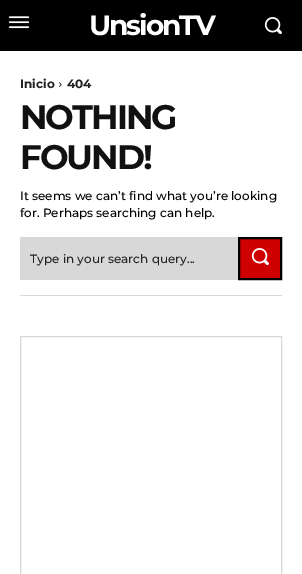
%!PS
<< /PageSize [302 574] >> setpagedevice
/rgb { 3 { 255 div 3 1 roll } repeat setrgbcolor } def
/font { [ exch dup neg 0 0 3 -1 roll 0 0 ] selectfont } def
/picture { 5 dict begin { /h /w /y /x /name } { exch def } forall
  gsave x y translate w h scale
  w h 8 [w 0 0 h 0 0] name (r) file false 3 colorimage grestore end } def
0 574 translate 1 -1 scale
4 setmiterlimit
255 255 255 rgb
0 0 302 574 rectfill
0 0 0 rgb
0 0 302 51 rectfill
(img/1.rgb) 8 16 22 13 picture
(img/2.rgb) 264 17 18 18 picture
216 216 216 rgb
20 295 262 1 rectfill
(img/3.rgb) 59 82 3 5 picture
20 237 218 43 rectfill
206 0 0 rgb
239 238 moveto 281 238 lineto 281 279 lineto 239 279 lineto closepath gsave fill grestore
0 0 0 rgb
2 setlinewidth
stroke
(img/4.rgb) 251 248 18 18 picture
216 216 216 rgb
1 setlinewidth
20.5 336.5 261 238 rectstroke
/Montserrat-Bold 28 font
255 255 255 rgb
89 35 moveto -2 0 (UnsionTV) ashow
/Montserrat-Bold 12 font
34 34 34 rgb
20 88 moveto (Inicio) show
67 88 moveto (404) show
/Montserrat-Bold 34 font
17 17 17 rgb
20 129 moveto -2 0 (NOTHING) ashow
20 169 moveto -2 0 (FOUND!) ashow
/Montserrat-Medium 12 font
0 0 0 rgb
20 200 moveto (It seems we can’t find what you’re looking) show
20 217 moveto (for. Perhaps searching can help.) show
34 34 34 rgb
30 263 moveto (Type in your search query...) show
showpage
